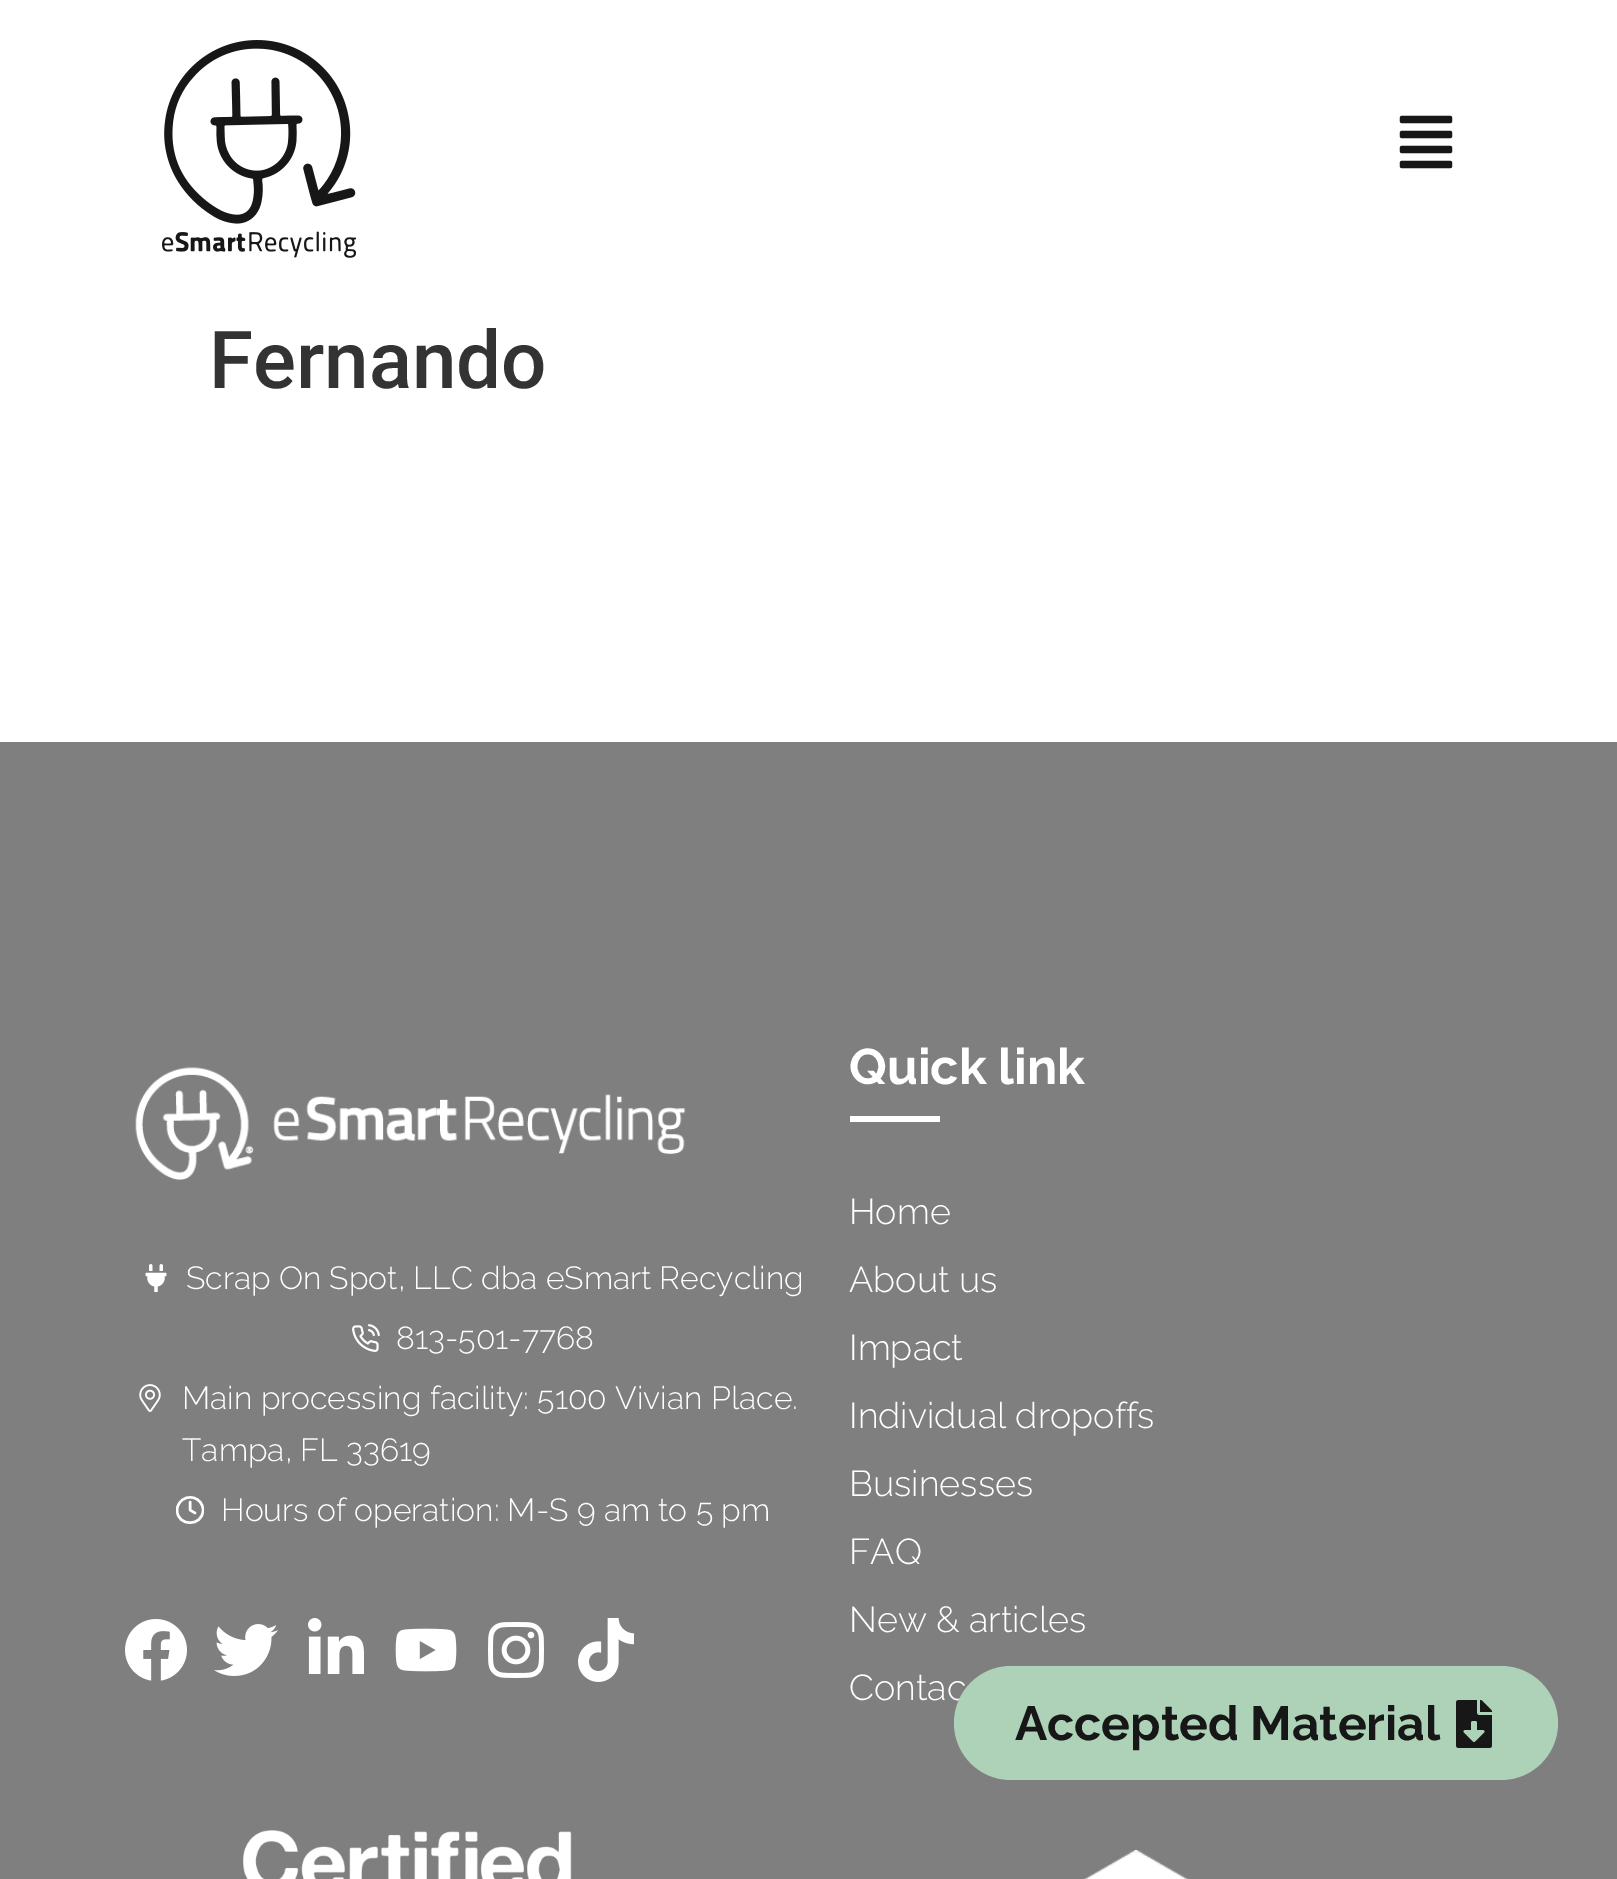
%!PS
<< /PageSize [1617 1879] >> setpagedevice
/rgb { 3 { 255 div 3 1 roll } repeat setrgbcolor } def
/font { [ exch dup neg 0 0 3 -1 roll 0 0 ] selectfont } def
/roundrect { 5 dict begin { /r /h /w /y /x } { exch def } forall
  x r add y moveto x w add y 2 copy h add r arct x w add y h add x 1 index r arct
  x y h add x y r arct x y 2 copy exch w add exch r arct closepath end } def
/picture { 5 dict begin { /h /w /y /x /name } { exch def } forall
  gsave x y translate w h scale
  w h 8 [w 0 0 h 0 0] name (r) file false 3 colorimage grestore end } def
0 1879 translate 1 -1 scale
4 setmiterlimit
255 255 255 rgb
0 0 1617 1879 rectfill
(img/1.rgb) 162 40 194 218 picture
(img/2.rgb) 1399 115 54 54 picture
127 127 127 rgb
0 742 1617 1137 rectfill
(img/3.rgb) 135 1067 551 114 picture
(img/4.rgb) 145 1264 22 28 picture
(img/5.rgb) 352 1324 28 28 picture
(img/6.rgb) 139 1384 22 28 picture
gsave
176 1496 28 28 rectclip
255 255 255 rgb
2.4 setlinewidth
1 setlinecap
1 setlinejoin
203 1510 moveto 203 1527 177 1527 177 1510 curveto 177 1507.5 178 1505 179.5 1503 curveto 186.5 1492.5 203 1497.5 203 1510 curveto closepath stroke
grestore
255 255 255 rgb
2.4 setlinewidth
1 setlinecap
1 setlinejoin
190 1502 moveto 190 1510 lineto 195 1513 lineto stroke
(img/7.rgb) 125 1619 62 62 picture
(img/8.rgb) 214 1624 64 52 picture
(img/9.rgb) 308 1618 56 56 picture
(img/10.rgb) 395 1628 62 44 picture
(img/11.rgb) 488 1622 56 56 picture
(img/12.rgb) 578 1618 56 64 picture
850 1116 90 6 rectfill
(img/13.rgb) 243 1830 329 49 picture
(img/14.rgb) 1083 1850 106 29 picture
/Roboto-Medium 80 font
51 51 51 rgb
209 388 moveto (Fernando) show
/Raleway-Light 32 font
255 255 255 rgb
[
  [(Scrap On Spot, LLC dba eSmart Recycling) 186 1289]
  [(813-501-7768) 396 1349]
  [(Main processing facility: 5100 Vivian Place.) 182 1409]
  [(Tampa, FL 33619) 182 1461]
  [(Hours of operation: M-S 9 am to 5 pm) 221 1521]
] { aload pop moveto show } forall
/Raleway-Bold 50 font
849 1084 moveto (Quick link) show
/Raleway-Light 36 font
[
  [(Home) 849 1224]
  [(About us) 849 1292]
  [(Impact) 849 1360]
  [(Individual dropoffs) 849 1428]
  [(Businesses) 849 1496]
  [(FAQ) 849 1564]
  [(New & articles) 849 1632]
  [(Contac) 849 1700]
] { aload pop moveto show } forall
173 210 183 rgb
954 1666 604 114 57 roundrect fill
/Raleway-Bold 48 font
23 23 23 rgb
1015 1740 moveto (Accepted Material) show
(img/15.rgb) 1456 1700 36 48 picture
showpage
